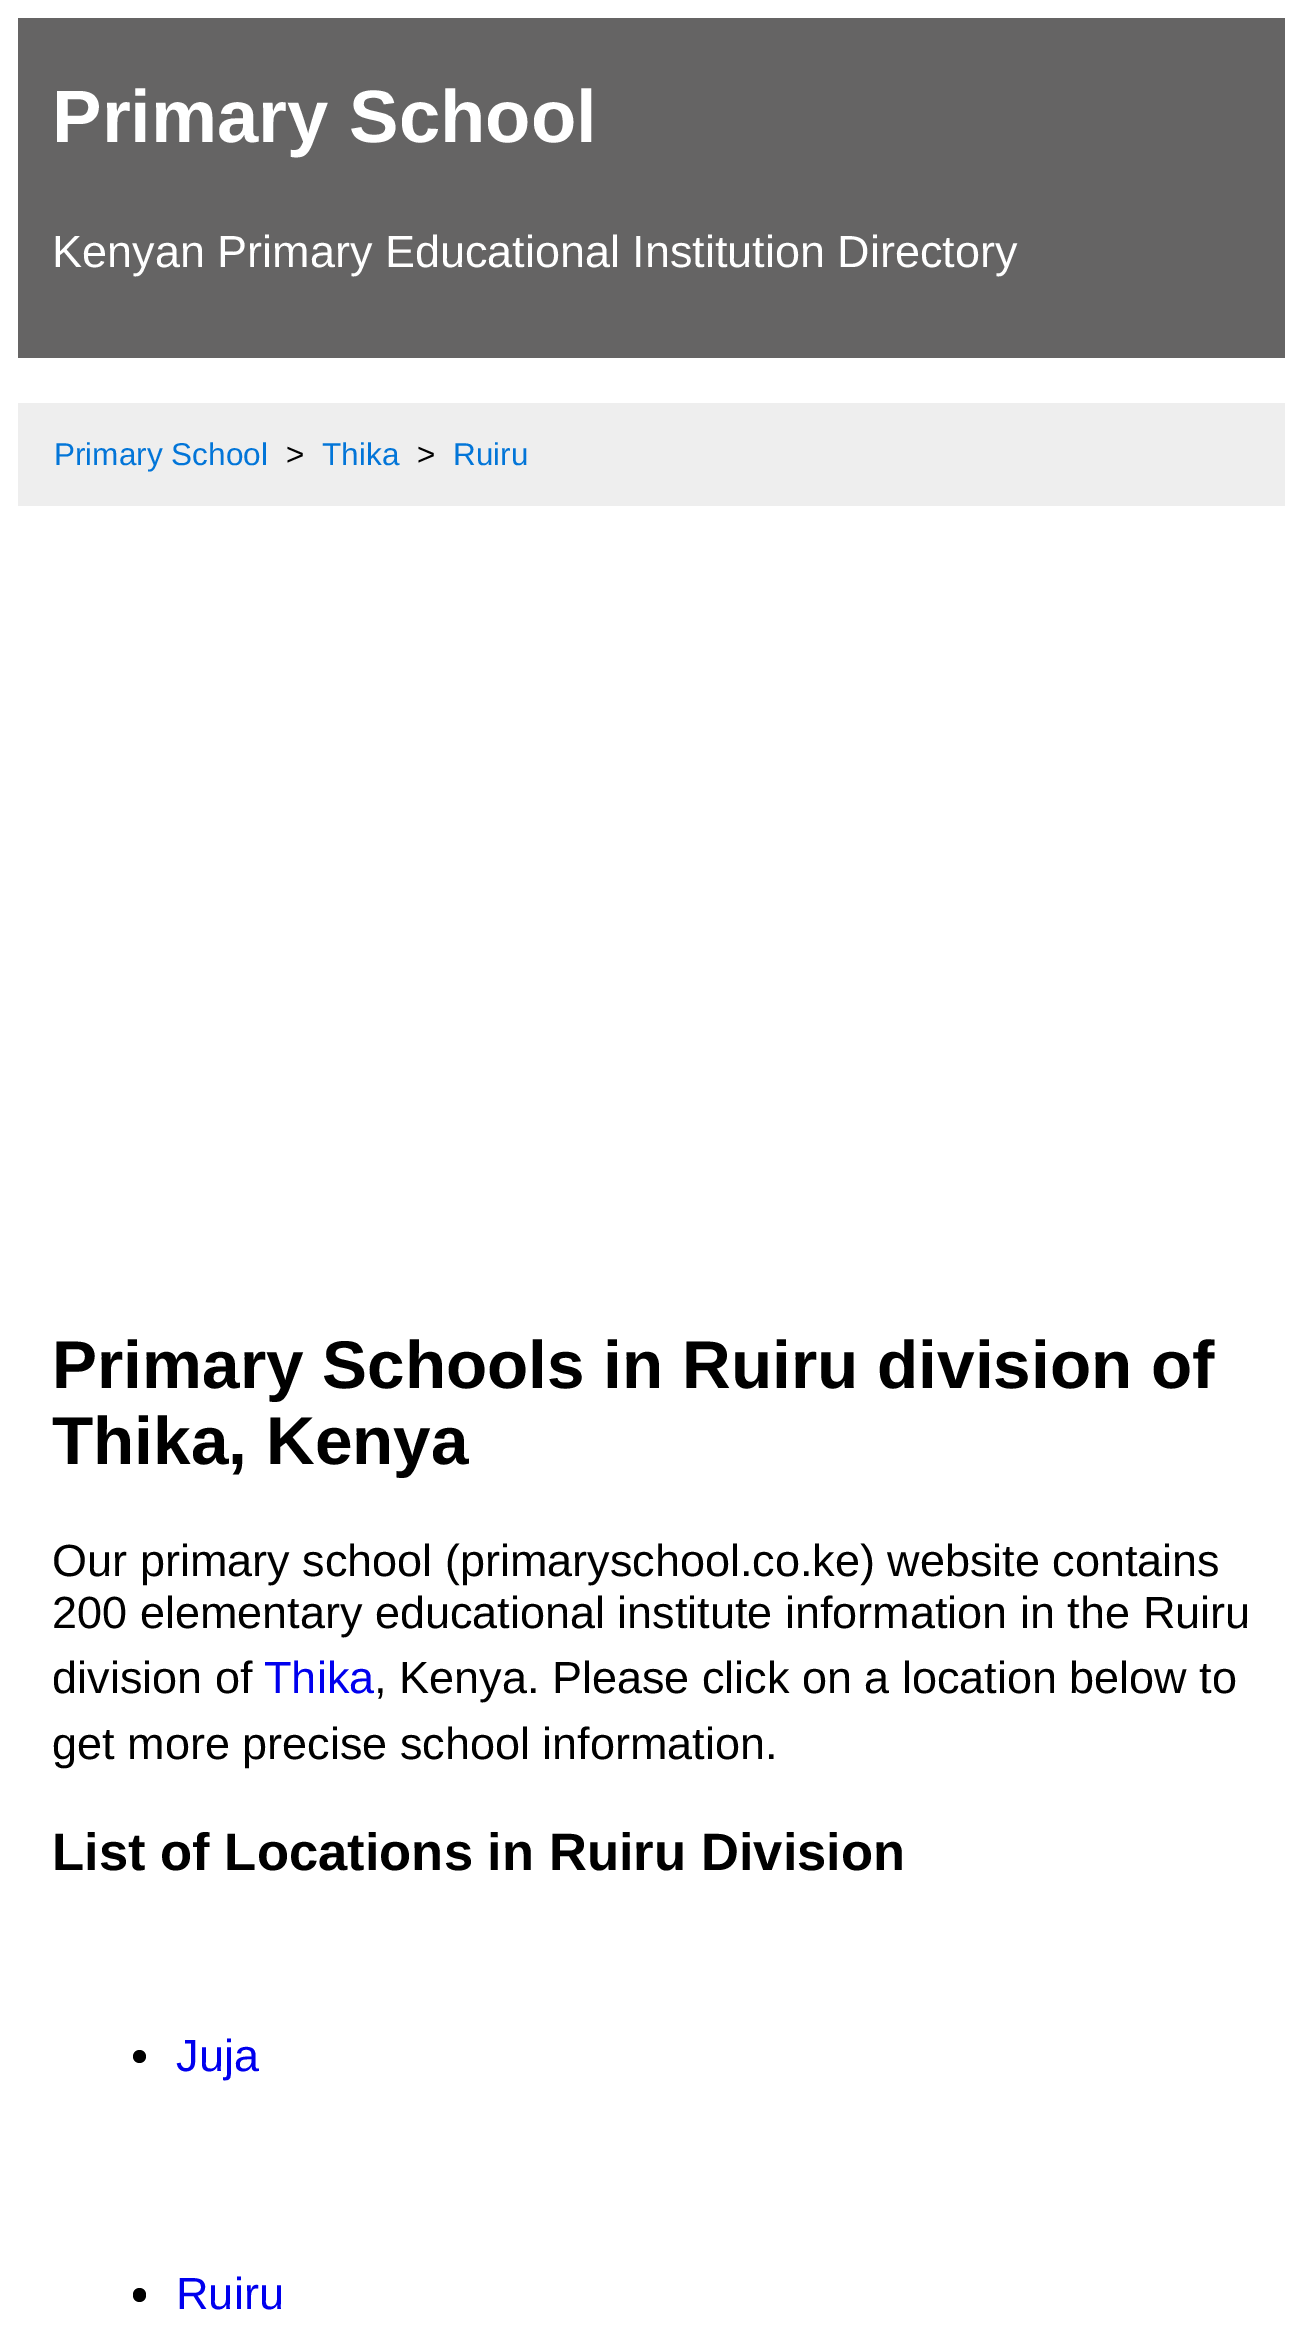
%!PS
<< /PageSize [1302 2338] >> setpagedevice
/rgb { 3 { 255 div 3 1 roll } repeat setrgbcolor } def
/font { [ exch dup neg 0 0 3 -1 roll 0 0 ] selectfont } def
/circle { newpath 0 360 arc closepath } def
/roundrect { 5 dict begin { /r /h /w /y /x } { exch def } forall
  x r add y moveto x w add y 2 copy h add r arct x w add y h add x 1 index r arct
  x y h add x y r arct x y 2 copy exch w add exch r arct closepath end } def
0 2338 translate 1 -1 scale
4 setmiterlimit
255 255 255 rgb
0 0 1302 2338 rectfill
101 100 100 rgb
18 18 1267 340 rectfill
238 238 238 rgb
18 403 1267 103 rectfill
0 0 0 rgb
139.5 2056.5 6.5 circle fill
133 2288 13 14 6.5 roundrect fill
/LiberationSans-Bold 74.25 font
255 255 255 rgb
52 142 moveto (Primary School) show
/LiberationSans-Regular 45 font
52 267 moveto (Kenyan Primary Educational Institution Directory) show
/LiberationSans-Regular 31.5 font
2 117 216 rgb
54 465 moveto (Primary School) show
0 0 0 rgb
286 465 moveto (>) show
2 117 216 rgb
322 465 moveto (Thika) show
0 0 0 rgb
417 465 moveto (>) show
2 117 216 rgb
453 465 moveto (Ruiru) show
/LiberationSans-Bold 67.5 font
0 0 0 rgb
52 1388 moveto (Primary Schools in Ruiru division of) show
52 1464 moveto (Thika, Kenya) show
/LiberationSans-Regular 45 font
[
  [(Our primary school \(primaryschool.co.ke\) website contains) 52 1576]
  [(200 elementary educational institute information in the Ruiru) 52 1628]
  [(division of) 52 1693]
] { aload pop moveto show } forall
0 0 238 rgb
264 1693 moveto (Thika) show
0 0 0 rgb
374 1693 moveto (, Kenya. Please click on a location below to) show
52 1759 moveto (get more precise school information.) show
/LiberationSans-Bold 52.6 font
52 1870 moveto (List of Locations in Ruiru Division) show
/LiberationSans-Regular 45 font
0 0 238 rgb
176 2071 moveto (Juja) show
176 2309 moveto (Ruiru) show
showpage
